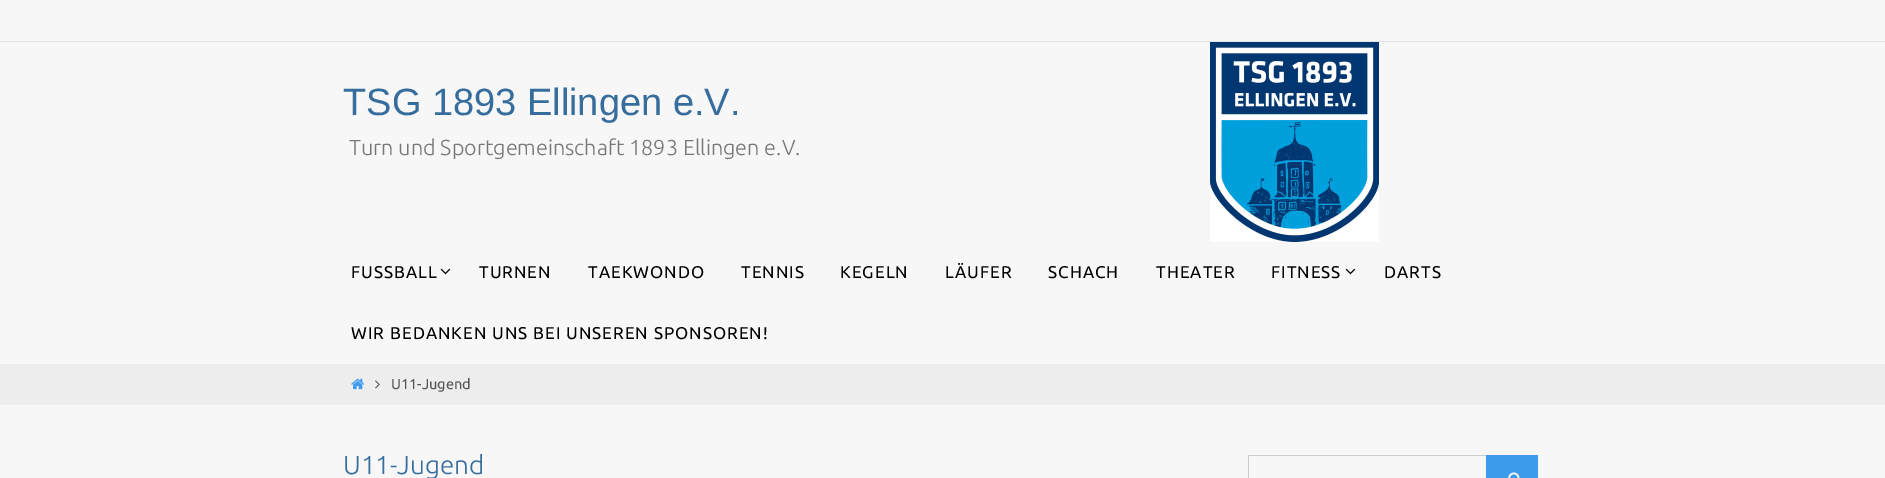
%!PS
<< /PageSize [1885 478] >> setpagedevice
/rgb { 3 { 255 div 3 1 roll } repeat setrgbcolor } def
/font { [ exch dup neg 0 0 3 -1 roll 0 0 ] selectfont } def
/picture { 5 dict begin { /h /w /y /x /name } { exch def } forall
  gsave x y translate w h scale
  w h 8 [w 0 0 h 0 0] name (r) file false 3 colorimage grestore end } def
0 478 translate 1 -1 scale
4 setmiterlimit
247 247 247 rgb
0 0 1885 478 rectfill
227 227 227 rgb
0 41 1885 1 rectfill
(img/1.rgb) 1210 42 169 200 picture
(img/2.rgb) 440 268 11 7 picture
(img/2.rgb) 1345 268 11 7 picture
237 237 237 rgb
0 364 1885 41 rectfill
(img/3.rgb) 351 378 14 12 picture
(img/4.rgb) 375 380 5 9 picture
[
  [1248 455 238 1 204 204 204]
  [1248 455 1 23 204 204 204]
  [1486 455 52 23 60 155 237]
] { aload pop rgb rectfill } forall
(img/5.rgb) 1508 472 12 6 picture
/LiberationSans-Regular 38 font
54 109 157 rgb
343 115 moveto (TSG 1893 Ellingen e.V.) show
/Ubuntu-Light 21.6 font
119 119 119 rgb
349 155 moveto (Turn und Sportgemeinschaft 1893 Ellingen e.V.) show
/Ubuntu-Regular 17 font
0 0 0 rgb
351 278 moveto 1 0 (FUSSBALL) ashow
479 278 moveto 1 0 (TURNEN) ashow
588 278 moveto 1 0 (TAEKWONDO) ashow
741 278 moveto 1 0 (TENNIS) ashow
840 278 moveto 1 0 (KEGELN) ashow
945 278 moveto 1 0 (LÄUFER) ashow
1048 278 moveto 1 0 (SCHACH) ashow
1156 278 moveto 1 0 (THEATER) ashow
1271 278 moveto 1 0 (FITNESS) ashow
1384 278 moveto 1 0 (DARTS) ashow
351 339 moveto 1 0 (WIR BEDANKEN UNS BEI UNSEREN SPONSOREN!) ashow
/Ubuntu-Regular 14.5 font
85 85 85 rgb
391 389 moveto (U11-Jugend) show
/Ubuntu-Light 26 font
54 109 157 rgb
343 474 moveto (U11-Jugend) show
showpage
